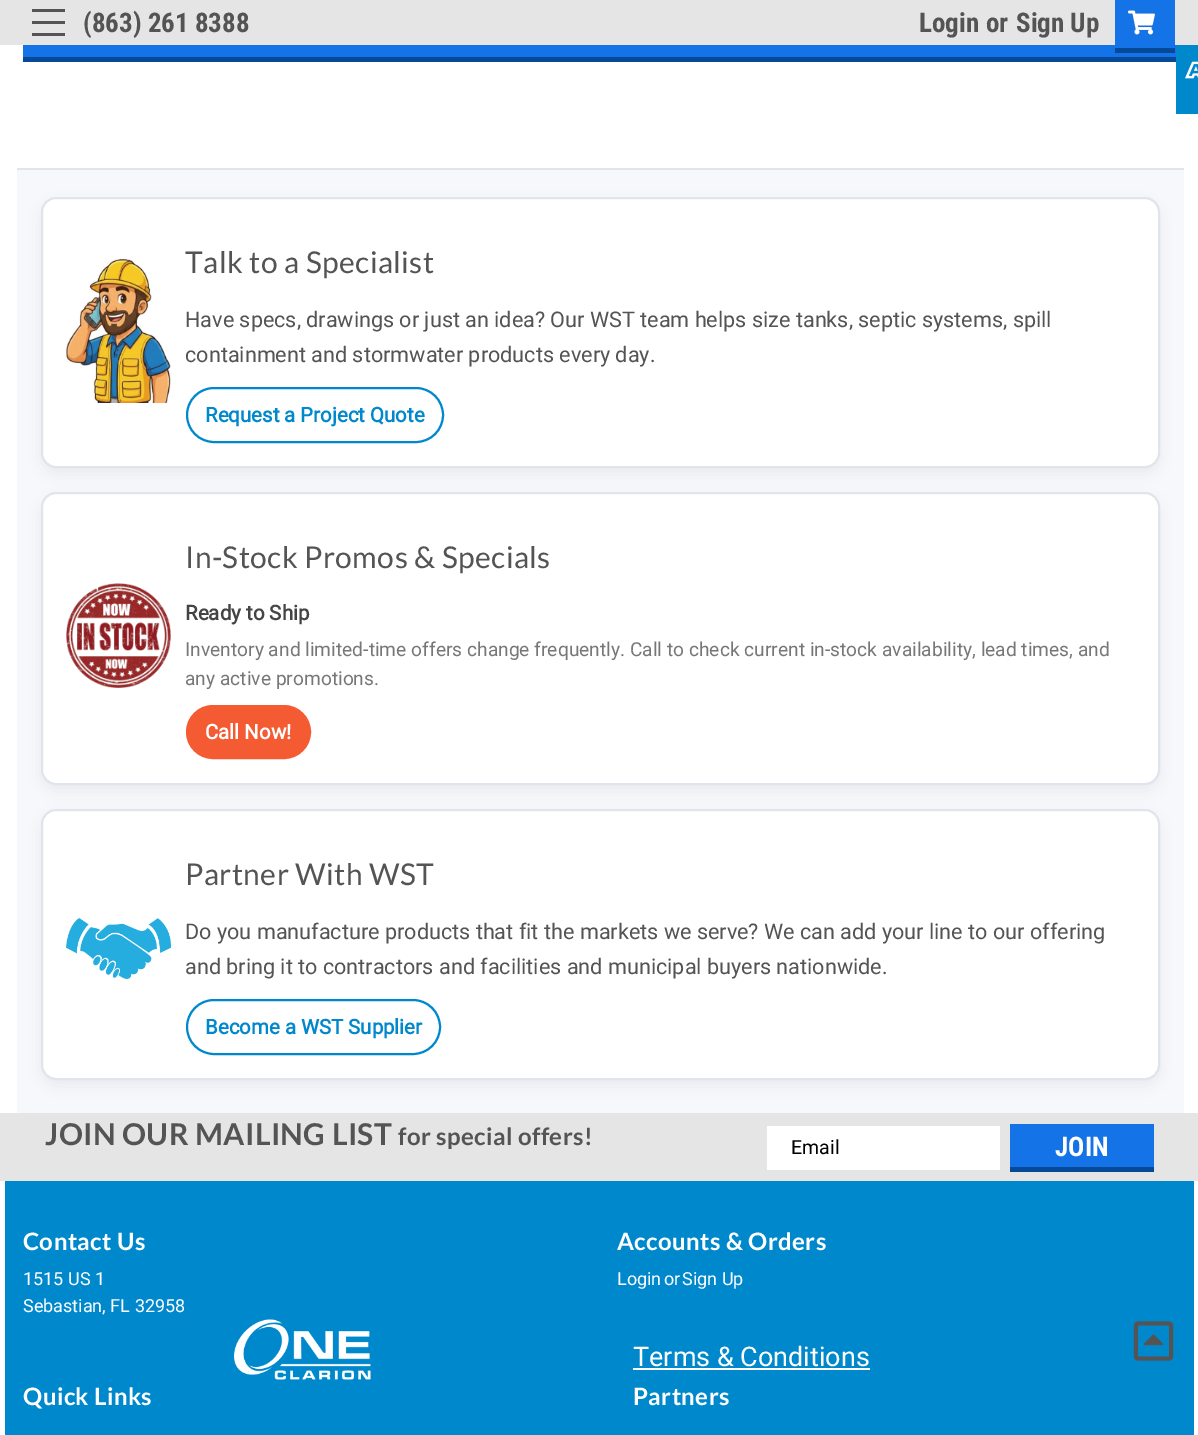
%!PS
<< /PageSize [1198 1435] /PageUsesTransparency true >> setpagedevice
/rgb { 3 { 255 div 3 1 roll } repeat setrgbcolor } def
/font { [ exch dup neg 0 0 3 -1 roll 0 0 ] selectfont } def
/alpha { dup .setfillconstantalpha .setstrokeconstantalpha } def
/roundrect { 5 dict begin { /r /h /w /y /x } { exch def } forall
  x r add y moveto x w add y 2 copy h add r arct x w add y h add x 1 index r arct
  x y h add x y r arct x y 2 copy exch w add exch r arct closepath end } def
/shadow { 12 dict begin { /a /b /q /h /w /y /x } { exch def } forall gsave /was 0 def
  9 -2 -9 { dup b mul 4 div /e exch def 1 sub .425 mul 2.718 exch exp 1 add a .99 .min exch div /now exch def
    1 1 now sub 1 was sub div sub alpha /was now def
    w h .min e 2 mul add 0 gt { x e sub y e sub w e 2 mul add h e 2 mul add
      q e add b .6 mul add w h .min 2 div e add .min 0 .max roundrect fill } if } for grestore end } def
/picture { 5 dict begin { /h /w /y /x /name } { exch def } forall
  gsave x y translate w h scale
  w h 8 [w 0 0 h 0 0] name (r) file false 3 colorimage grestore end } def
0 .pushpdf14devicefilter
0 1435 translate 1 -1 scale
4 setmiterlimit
255 255 255 rgb
0 0 1198 1435 rectfill
[
  [0 0 1198 45 229 229 229]
  [32 21 33 3 84 84 84]
  [32 9 33 3 84 84 84]
  [32 33 33 3 84 84 84]
  [1115 0 60 45 20 115 230]
  [23 45 1153 12 20 115 230]
  [1115 48 60 5 7 73 153]
] { aload pop rgb rectfill } forall
(img/1.rgb) 1128 10 27 25 picture
0 136 204 rgb
1176 45 22 69 rectfill
(img/2.rgb) 1185 61 13 18 picture
[
  [23 57 1153 5 7 73 153]
  [17 170 1167 943 247 248 251]
  [17 168 1167 2 224 228 236]
] { aload pop rgb rectfill } forall
15 23 42 rgb
41 203 1119 271 15 7.5 0.06 shadow
255 255 255 rgb
42 198 1117 269 14 roundrect gsave fill grestore
224 228 236 rgb
2 setlinewidth
stroke
(img/3.rgb) 66 258 105 145 picture
0 136 204 rgb
187 388 256 54 27 roundrect stroke
15 23 42 rgb
41 498 1119 293 15 7.5 0.06 shadow
255 255 255 rgb
42 493 1117 291 14 roundrect gsave fill grestore
224 228 236 rgb
stroke
(img/4.rgb) 66 583 105 105 picture
244 91 50 rgb
187 706 123 52 26 roundrect gsave fill grestore
stroke
15 23 42 rgb
41 815 1119 271 15 7.5 0.06 shadow
255 255 255 rgb
42 810 1117 269 14 roundrect gsave fill grestore
224 228 236 rgb
stroke
(img/5.rgb) 66 918 105 61 picture
0 136 204 rgb
187 1000 253 54 27 roundrect stroke
[
  [0 1113 1198 68 229 229 229]
  [767 1126 233 44 255 255 255]
  [1010 1124 144 43 20 115 230]
  [1010 1167 144 5 7 73 153]
  [5 1181 1189 254 0 136 204]
] { aload pop rgb rectfill } forall
(img/6.rgb) 234 1319 137 61 picture
255 255 255 rgb
633 1368 237 2 rectfill
(img/7.rgb) 1133 1321 41 40 picture
/RobotoCondensed-Bold 27 font
84 84 84 rgb
[
  [(\(863\) 261 8388) 83 32]
  [(Login) 919 32]
  [(or) 986 32]
  [(Sign Up) 1016 32]
] { aload pop moveto show } forall
/Lato-Regular 30 font
185 273 moveto 0.4 0 (Talk to a Specialist) ashow
/Roboto-Regular 21.6 font
185 327 moveto (Have specs, drawings or just an idea? Our WST team helps size tanks, septic systems, spill) show
185 362 moveto (containment and stormwater products every day.) show
/Roboto-Bold 20.4 font
0 136 204 rgb
205 422 moveto (Request a Project Quote) show
/Lato-Regular 30 font
84 84 84 rgb
185 568 moveto 0.4 0 (In-Stock Promos & Specials) ashow
/Roboto-Bold 20.5 font
68 68 68 rgb
185 620 moveto (Ready to Ship) show
/Roboto-Regular 19.2 font
119 119 119 rgb
185 656 moveto (Inventory and limited-time offers change frequently. Call to check current in-stock availability, lead times, and) show
185 685 moveto (any active promotions.) show
/Roboto-Bold 20.4 font
255 255 255 rgb
205 739 moveto (Call Now!) show
/Lato-Regular 30 font
84 84 84 rgb
185 885 moveto 0.4 0 (Partner With WST) ashow
/Roboto-Regular 21.6 font
185 939 moveto (Do you manufacture products that fit the markets we serve? We can add your line to our offering) show
185 974 moveto (and bring it to contractors and facilities and municipal buyers nationwide.) show
/Roboto-Bold 20.4 font
0 136 204 rgb
205 1034 moveto (Become a WST Supplier) show
/Lato-Bold 30 font
84 84 84 rgb
45 1145 moveto 0.4 0 (JOIN OUR MAILING LIST) ashow
/Lato-Bold 24 font
398 1145 moveto 0.4 0 (for special offers!) ashow
/Roboto-Regular 19.5 font
0 0 0 rgb
791 1154 moveto (Email) show
/RobotoCondensed-Bold 27 font
255 255 255 rgb
1055 1156 moveto (JOIN) show
/Lato-Bold 24 font
23 1250 moveto 0.4 0 (Contact Us) ashow
/Roboto-Regular 18 font
23 1285 moveto (1515 US 1) show
23 1312 moveto (Sebastian, FL 32958) show
/Lato-Bold 24 font
617 1250 moveto 0.4 0 (Accounts & Orders) ashow
/Roboto-Regular 18 font
[
  [(Login) 617 1285]
  [(or) 664 1285]
  [(Sign Up) 682 1285]
] { aload pop moveto show } forall
/Roboto-Regular 27 font
633 1366 moveto (Terms & Conditions) show
/Lato-Bold 24 font
23 1405 moveto 0.4 0 (Quick Links) ashow
633 1405 moveto 0.4 0 (Partners) ashow
.poppdf14devicefilter showpage
